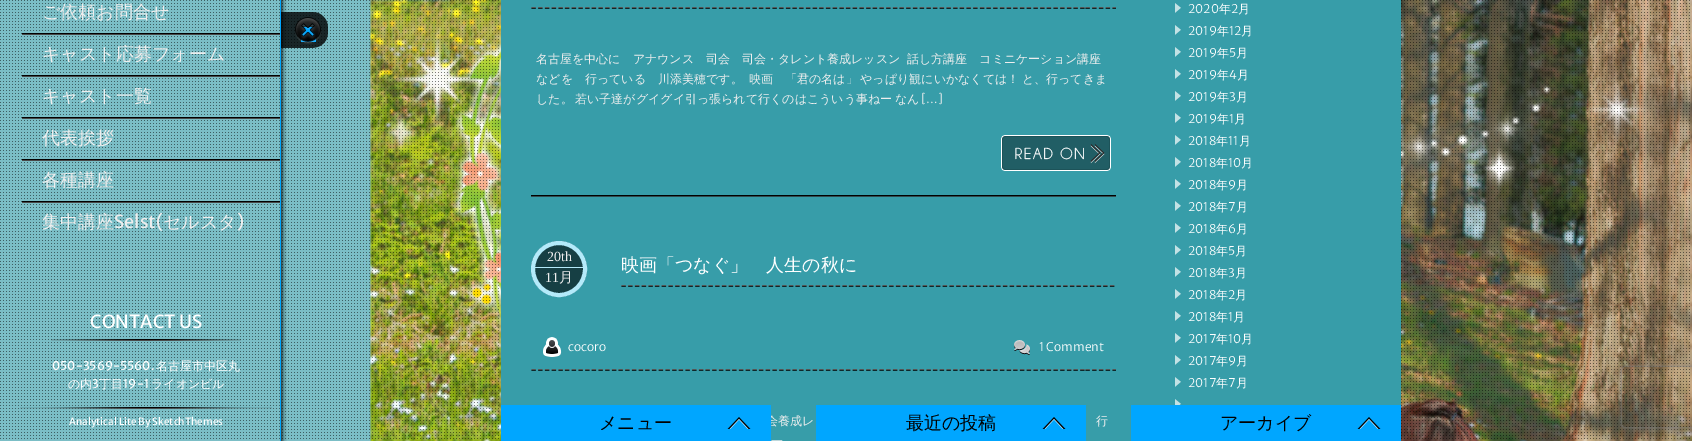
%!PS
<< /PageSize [1692 441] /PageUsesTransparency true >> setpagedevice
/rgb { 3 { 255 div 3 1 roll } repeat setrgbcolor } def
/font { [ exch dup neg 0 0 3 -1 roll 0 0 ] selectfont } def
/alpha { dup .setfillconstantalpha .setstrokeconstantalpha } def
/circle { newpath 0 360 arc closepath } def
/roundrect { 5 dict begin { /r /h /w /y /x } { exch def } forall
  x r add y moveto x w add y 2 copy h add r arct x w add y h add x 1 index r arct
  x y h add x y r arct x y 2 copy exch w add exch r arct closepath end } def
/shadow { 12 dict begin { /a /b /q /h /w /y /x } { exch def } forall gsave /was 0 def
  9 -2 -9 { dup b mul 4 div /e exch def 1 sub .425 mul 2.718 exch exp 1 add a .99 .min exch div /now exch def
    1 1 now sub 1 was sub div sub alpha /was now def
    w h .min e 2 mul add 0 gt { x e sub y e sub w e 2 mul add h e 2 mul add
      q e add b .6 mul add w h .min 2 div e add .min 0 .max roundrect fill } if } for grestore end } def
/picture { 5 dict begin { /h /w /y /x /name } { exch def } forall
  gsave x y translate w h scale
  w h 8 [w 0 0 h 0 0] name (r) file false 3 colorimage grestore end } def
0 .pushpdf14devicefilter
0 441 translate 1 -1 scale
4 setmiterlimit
255 255 255 rgb
0 0 1692 441 rectfill
(img/1.rgb) 0 0 1692 441 picture
(img/2.rgb) 0 0 1690 439 picture
gsave
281 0 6 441 rectclip
0 0 0 rgb
-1 -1 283 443 0 2.5 1 shadow
grestore
0 166 255 rgb
280 0 1 441 rectfill
(img/3.rgb) 22 33 258 2 picture
(img/3.rgb) 22 75 258 2 picture
(img/3.rgb) 22 117 258 2 picture
(img/3.rgb) 22 159 258 2 picture
(img/3.rgb) 22 201 258 2 picture
(img/4.rgb) 51 339 190 2 picture
(img/5.rgb) 20 407 252 2 picture
(img/6.rgb) 281 12 47 36 picture
301 27 15 15 rectfill
(img/7.rgb) 295 17 26 27 picture
55 157 169 rgb
501 0 900 441 rectfill
(img/8.rgb) 531 195 585 2 picture
(img/9.rgb) 531 7 585 2 picture
(img/10.rgb) 1001 135 110 36 picture
(img/11.rgb) 531 241 56 56 picture
180 234 250 rgb
4 setlinewidth
559 269 26 circle stroke
535 267 48 1 rectfill
(img/12.rgb) 621 285 494 2 picture
(img/13.rgb) 543 337 19 20 picture
(img/14.rgb) 1014 340 16 15 picture
(img/9.rgb) 531 369 585 2 picture
(img/15.rgb) 1175 3 6 10 picture
(img/15.rgb) 1175 25 6 10 picture
(img/15.rgb) 1175 47 6 10 picture
(img/15.rgb) 1175 69 6 10 picture
(img/15.rgb) 1175 91 6 10 picture
(img/15.rgb) 1175 113 6 10 picture
(img/15.rgb) 1175 135 6 10 picture
(img/15.rgb) 1175 157 6 10 picture
(img/15.rgb) 1175 179 6 10 picture
(img/15.rgb) 1175 201 6 10 picture
(img/15.rgb) 1175 223 6 10 picture
(img/15.rgb) 1175 245 6 10 picture
(img/15.rgb) 1175 267 6 10 picture
(img/15.rgb) 1175 289 6 10 picture
(img/15.rgb) 1175 311 6 10 picture
(img/15.rgb) 1175 333 6 10 picture
(img/15.rgb) 1175 355 6 10 picture
(img/15.rgb) 1175 377 6 10 picture
(img/16.rgb) 1175 399 6 6 picture
0 166 255 rgb
816 405 270 36 rectfill
(img/17.rgb) 1042 417 24 12 picture
1131 405 270 36 rectfill
(img/17.rgb) 1357 417 24 12 picture
gsave
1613 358 moveto 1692 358 lineto 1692 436 lineto 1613 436 lineto closepath 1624 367 moveto 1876 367 lineto 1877 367 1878 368 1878 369 curveto 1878 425 lineto 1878 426 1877 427 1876 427 curveto 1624 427 lineto 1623 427 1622 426 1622 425 curveto 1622 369 lineto 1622 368 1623 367 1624 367 curveto closepath eoclip newpath
128 128 128 rgb
1622 367 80 60 2 2.5 1 shadow
grestore
/WenQuanYiZenHei-Medium 18 font
238 238 238 rgb
[
  [(ご依頼お問合せ) 42 18]
  [(キャスト応募フォーム) 42 60]
  [(キャスト一覧) 42 102]
  [(代表挨拶) 42 144]
  [(各種講座) 42 186]
  [(集中講座) 42 228]
] { aload pop moveto show } forall
/MerriweatherSans-Regular 18 font
114 228 moveto (Selst\() show
/WenQuanYiZenHei-Medium 18 font
163 228 moveto (セルスタ) show
/MerriweatherSans-Regular 18 font
237 228 moveto (\)) show
255 255 255 rgb
90 328 moveto (CONTACT US) show
/MerriweatherSans-Regular 12 font
52 370 moveto (050-3569-5560.) show
/WenQuanYiZenHei-Medium 12 font
156 370 moveto (名古屋市中区丸) show
68 388 moveto (の内) show
/MerriweatherSans-Regular 12 font
92 388 moveto (3) show
/WenQuanYiZenHei-Medium 12 font
99 388 moveto (丁目) show
/MerriweatherSans-Regular 12 font
123 388 moveto (19-1) show
/WenQuanYiZenHei-Medium 12 font
151 388 moveto (ライオンビル) show
/MerriweatherSans-Regular 10 font
69 425 moveto (Analytical Lite By SketchThemes) show
/WenQuanYiZenHei-Medium 12 font
238 238 238 rgb
[
  [(名古屋を中心に　アナウンス　司会　司会・タレント養成レッスン) 536 63]
  [(話し方講座　コミニケーション講座) 907 63]
  [(などを　行っている　川添美穂です。) 536 83]
] { aload pop moveto show } forall
749 83 moveto -1 0 32 (映画　「君の名は」 やっぱり観にいかなくては！ と、行ってきま) widthshow
536 103 moveto -1 0 32 (した。 若い子達がグイグイ引っ張られて行くのはこういう事ねー なん) widthshow
/MerriweatherSans-Light 12 font
921 103 moveto ([…]) show
/LiberationSerif-Regular 14 font
547 261 moveto (20th) show
545 282 moveto (11) show
/WenQuanYiZenHei-Medium 14 font
559 282 moveto (月) show
/WenQuanYiZenHei-Medium 18 font
255 255 255 rgb
621 271 moveto (映画「つなぐ」　人生の秋に) show
/MerriweatherSans-Light 12 font
568 351 moveto (cocoro) show
1039 351 moveto (1 Comment) show
/WenQuanYiZenHei-Medium 12 font
238 238 238 rgb
766 425 moveto -1 0 32 (会養成レ) widthshow
1096 425 moveto -1 0 32 (行) widthshow
771 445 moveto -1 0 32 (一) widthshow
/MerriweatherSans-Light 12 font
255 255 255 rgb
1188 13 moveto (2020) show
/WenQuanYiZenHei-Medium 12 font
1219 13 moveto (年) show
/MerriweatherSans-Light 12 font
1231 13 moveto (2) show
/WenQuanYiZenHei-Medium 12 font
1238 13 moveto (月) show
/MerriweatherSans-Light 12 font
1188 35 moveto (2019) show
/WenQuanYiZenHei-Medium 12 font
1217 35 moveto (年) show
/MerriweatherSans-Light 12 font
1229 35 moveto (12) show
/WenQuanYiZenHei-Medium 12 font
1241 35 moveto (月) show
/MerriweatherSans-Light 12 font
1188 57 moveto (2019) show
/WenQuanYiZenHei-Medium 12 font
1217 57 moveto (年) show
/MerriweatherSans-Light 12 font
1229 57 moveto (5) show
/WenQuanYiZenHei-Medium 12 font
1236 57 moveto (月) show
/MerriweatherSans-Light 12 font
1188 79 moveto (2019) show
/WenQuanYiZenHei-Medium 12 font
1217 79 moveto (年) show
/MerriweatherSans-Light 12 font
1229 79 moveto (4) show
/WenQuanYiZenHei-Medium 12 font
1237 79 moveto (月) show
/MerriweatherSans-Light 12 font
1188 101 moveto (2019) show
/WenQuanYiZenHei-Medium 12 font
1217 101 moveto (年) show
/MerriweatherSans-Light 12 font
1229 101 moveto (3) show
/WenQuanYiZenHei-Medium 12 font
1236 101 moveto (月) show
/MerriweatherSans-Light 12 font
1188 123 moveto (2019) show
/WenQuanYiZenHei-Medium 12 font
1217 123 moveto (年) show
/MerriweatherSans-Light 12 font
1229 123 moveto (1) show
/WenQuanYiZenHei-Medium 12 font
1234 123 moveto (月) show
/MerriweatherSans-Light 12 font
1188 145 moveto (2018) show
/WenQuanYiZenHei-Medium 12 font
1216 145 moveto (年) show
/MerriweatherSans-Light 12 font
1228 145 moveto (11) show
/WenQuanYiZenHei-Medium 12 font
1239 145 moveto (月) show
/MerriweatherSans-Light 12 font
1188 167 moveto (2018) show
/WenQuanYiZenHei-Medium 12 font
1216 167 moveto (年) show
/MerriweatherSans-Light 12 font
1228 167 moveto (10) show
/WenQuanYiZenHei-Medium 12 font
1241 167 moveto (月) show
/MerriweatherSans-Light 12 font
1188 189 moveto (2018) show
/WenQuanYiZenHei-Medium 12 font
1216 189 moveto (年) show
/MerriweatherSans-Light 12 font
1228 189 moveto (9) show
/WenQuanYiZenHei-Medium 12 font
1236 189 moveto (月) show
/MerriweatherSans-Light 12 font
1188 211 moveto (2018) show
/WenQuanYiZenHei-Medium 12 font
1216 211 moveto (年) show
/MerriweatherSans-Light 12 font
1228 211 moveto (7) show
/WenQuanYiZenHei-Medium 12 font
1236 211 moveto (月) show
/MerriweatherSans-Light 12 font
1188 233 moveto (2018) show
/WenQuanYiZenHei-Medium 12 font
1216 233 moveto (年) show
/MerriweatherSans-Light 12 font
1228 233 moveto (6) show
/WenQuanYiZenHei-Medium 12 font
1236 233 moveto (月) show
/MerriweatherSans-Light 12 font
1188 255 moveto (2018) show
/WenQuanYiZenHei-Medium 12 font
1216 255 moveto (年) show
/MerriweatherSans-Light 12 font
1228 255 moveto (5) show
/WenQuanYiZenHei-Medium 12 font
1235 255 moveto (月) show
/MerriweatherSans-Light 12 font
1188 277 moveto (2018) show
/WenQuanYiZenHei-Medium 12 font
1216 277 moveto (年) show
/MerriweatherSans-Light 12 font
1228 277 moveto (3) show
/WenQuanYiZenHei-Medium 12 font
1235 277 moveto (月) show
/MerriweatherSans-Light 12 font
1188 299 moveto (2018) show
/WenQuanYiZenHei-Medium 12 font
1216 299 moveto (年) show
/MerriweatherSans-Light 12 font
1228 299 moveto (2) show
/WenQuanYiZenHei-Medium 12 font
1235 299 moveto (月) show
/MerriweatherSans-Light 12 font
1188 321 moveto (2018) show
/WenQuanYiZenHei-Medium 12 font
1216 321 moveto (年) show
/MerriweatherSans-Light 12 font
1228 321 moveto (1) show
/WenQuanYiZenHei-Medium 12 font
1233 321 moveto (月) show
/MerriweatherSans-Light 12 font
1188 343 moveto (2017) show
/WenQuanYiZenHei-Medium 12 font
1216 343 moveto (年) show
/MerriweatherSans-Light 12 font
1228 343 moveto (10) show
/WenQuanYiZenHei-Medium 12 font
1241 343 moveto (月) show
/MerriweatherSans-Light 12 font
1188 365 moveto (2017) show
/WenQuanYiZenHei-Medium 12 font
1216 365 moveto (年) show
/MerriweatherSans-Light 12 font
1228 365 moveto (9) show
/WenQuanYiZenHei-Medium 12 font
1236 365 moveto (月) show
/MerriweatherSans-Light 12 font
1188 387 moveto (2017) show
/WenQuanYiZenHei-Medium 12 font
1216 387 moveto (年) show
/MerriweatherSans-Light 12 font
1228 387 moveto (7) show
/WenQuanYiZenHei-Medium 12 font
1236 387 moveto (月) show
0 166 255 rgb
501 405 270 36 rectfill
/WenQuanYiZenHei-Medium 18 font
0 0 0 rgb
599 429 moveto (メニュー) show
(img/17.rgb) 727 417 24 12 picture
906 429 moveto (最近の投稿) show
1220 429 moveto (アーカイブ) show
.poppdf14devicefilter showpage
